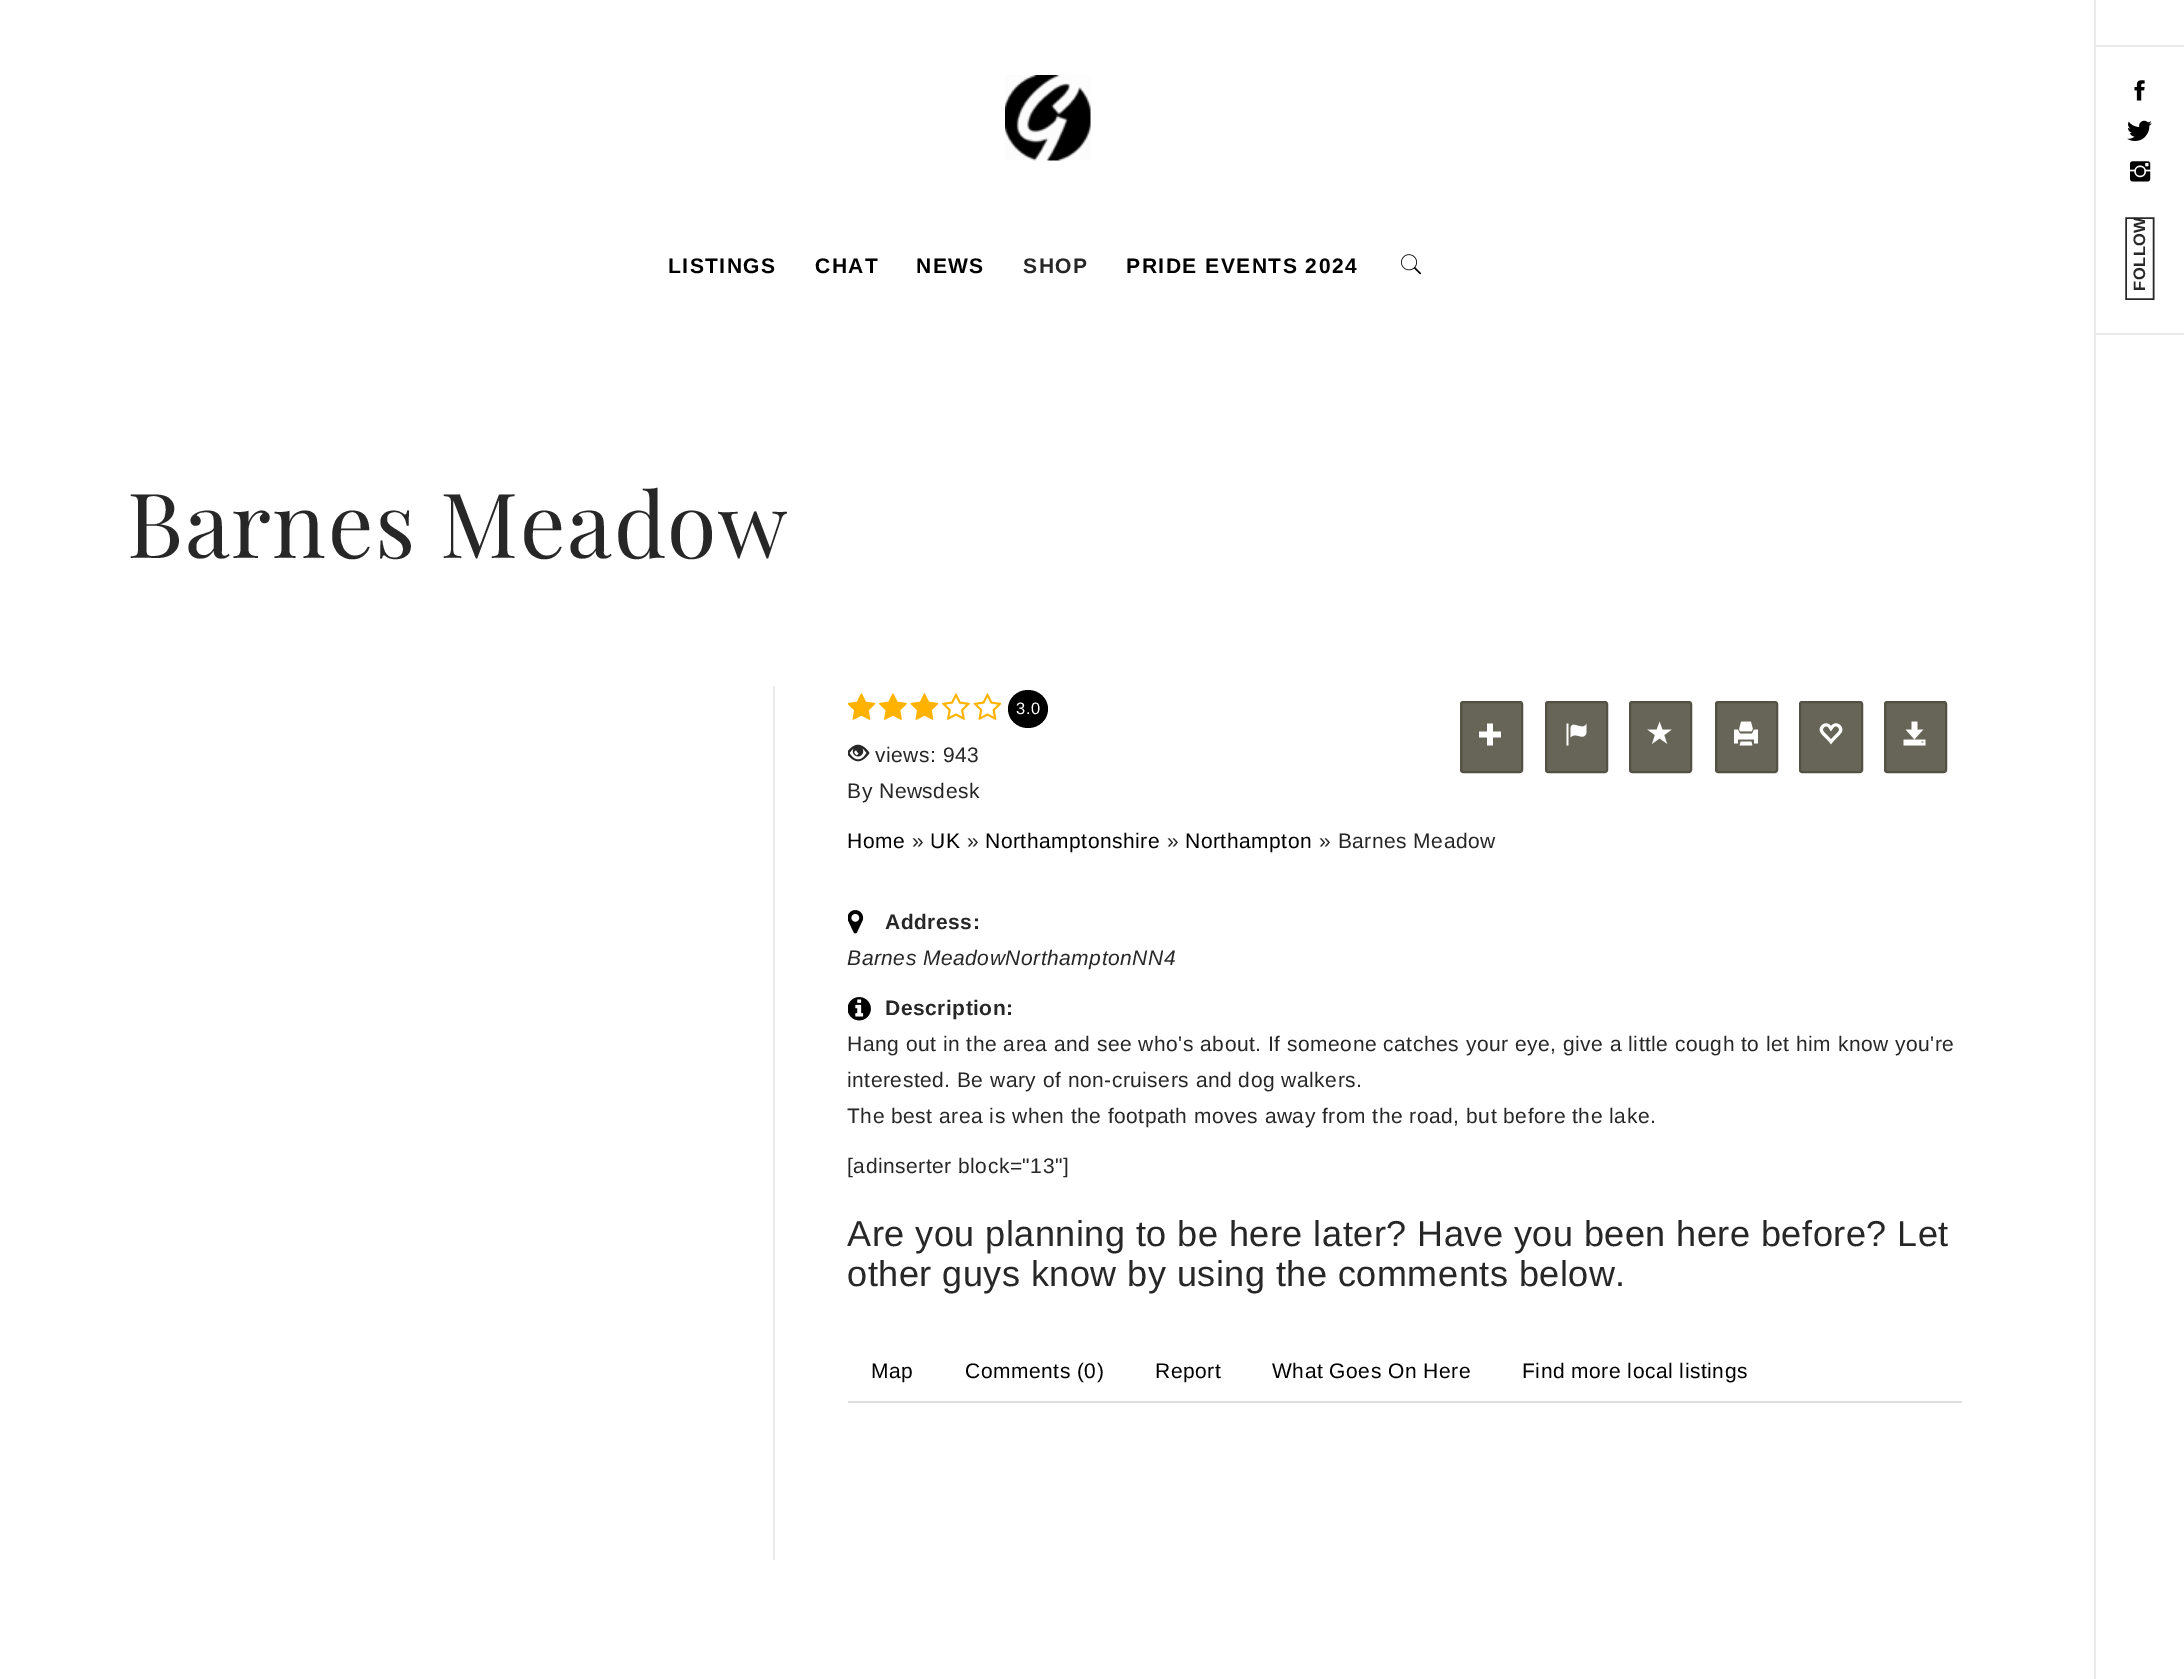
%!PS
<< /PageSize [2184 1679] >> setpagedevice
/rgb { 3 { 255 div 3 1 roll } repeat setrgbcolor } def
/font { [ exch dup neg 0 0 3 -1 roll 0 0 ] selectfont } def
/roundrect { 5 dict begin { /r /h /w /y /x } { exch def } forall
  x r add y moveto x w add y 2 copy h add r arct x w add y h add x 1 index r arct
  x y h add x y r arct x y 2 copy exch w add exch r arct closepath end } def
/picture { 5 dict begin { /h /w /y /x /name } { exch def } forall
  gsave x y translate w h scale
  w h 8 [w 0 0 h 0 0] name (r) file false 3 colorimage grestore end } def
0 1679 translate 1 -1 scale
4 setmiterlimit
255 255 255 rgb
0 0 2184 1679 rectfill
(img/1.rgb) 1005 75 86 86 picture
(img/2.rgb) 1401 254 21 21 picture
234 234 234 rgb
773 686 2 874 rectfill
(img/3.rgb) 848 693 28 27 picture
(img/4.rgb) 879 693 28 27 picture
(img/5.rgb) 910 693 29 27 picture
(img/6.rgb) 942 693 28 27 picture
(img/7.rgb) 973 693 28 27 picture
0 0 0 rgb
1028 690 moveto 1039 690 1048 698.5 1048 709 curveto 1048 719.5 1039 728 1028 728 curveto 1017 728 1008 719.5 1008 709 curveto 1008 698.5 1017 690 1028 690 curveto closepath fill
(img/8.rgb) 848 744 22 18 picture
103 101 88 rgb
1461 702 61 70 2 roundrect gsave fill grestore
83 81 68 rgb
2 setlinewidth
stroke
(img/9.rgb) 1479 723 22 23 picture
103 101 88 rgb
1546 702 61 70 2 roundrect gsave fill grestore
83 81 68 rgb
stroke
(img/10.rgb) 1566 723 21 23 picture
103 101 88 rgb
1630 702 61 70 2 roundrect gsave fill grestore
83 81 68 rgb
stroke
(img/11.rgb) 1647 721 25 23 picture
103 101 88 rgb
1716 702 61 70 2 roundrect gsave fill grestore
83 81 68 rgb
stroke
(img/12.rgb) 1734 721 24 25 picture
103 101 88 rgb
1800 702 62 70 2 roundrect gsave fill grestore
83 81 68 rgb
stroke
(img/13.rgb) 1819 723 24 22 picture
103 101 88 rgb
1885 702 61 70 2 roundrect gsave fill grestore
83 81 68 rgb
stroke
(img/14.rgb) 1903 721 23 25 picture
(img/15.rgb) 848 910 16 24 picture
(img/16.rgb) 848 997 23 24 picture
[
  [848 1401 1114 2 221 221 221]
  [2094 0 2 1679 234 234 234]
  [2096 45 88 2 234 234 234]
  [2096 333 88 2 234 234 234]
] { aload pop rgb rectfill } forall
(img/17.rgb) 2134 80 11 21 picture
(img/18.rgb) 2127 120 25 21 picture
(img/19.rgb) 2130 161 21 21 picture
39 39 39 rgb
1.5 setlinewidth
2126 299 moveto 2126 218 lineto 2153.5 218 lineto 2153.5 299 lineto closepath stroke
/LiberationSans-Bold 21 font
0 0 0 rgb
668 273 moveto 1.5 0 (LISTINGS) ashow
815 273 moveto 1.5 0 (CHAT) ashow
916 273 moveto 1.5 0 (NEWS) ashow
39 39 39 rgb
1023 273 moveto 1.5 0 (SHOP) ashow
0 0 0 rgb
1126 273 moveto 1.5 0 (PRIDE EVENTS 2024) ashow
/PlayfairDisplay-Regular 90 font
39 39 39 rgb
127 558 moveto 1.5 0 (Barnes Meadow) ashow
/LiberationSans-Regular 16.5 font
255 255 255 rgb
1016 714 moveto 0.51 0 (3.0) ashow
/LiberationSans-Regular 21 font
39 39 39 rgb
875 762 moveto 0.51 0 (views: 943) ashow
847 798 moveto 0.51 0 (By Newsdesk) ashow
0 0 0 rgb
847 848 moveto 0.51 0 (Home) ashow
39 39 39 rgb
912 848 moveto 0.51 0 (») ashow
0 0 0 rgb
930 848 moveto 0.51 0 (UK) ashow
39 39 39 rgb
967 848 moveto 0.51 0 (») ashow
0 0 0 rgb
985 848 moveto 0.51 0 (Northamptonshire) ashow
39 39 39 rgb
1167 848 moveto 0.51 0 (») ashow
0 0 0 rgb
1185 848 moveto 0.51 0 (Northampton) ashow
39 39 39 rgb
1319 848 moveto 0.51 0 (» Barnes Meadow) ashow
/LiberationSans-Bold 21 font
885 929 moveto 0.51 0 (Address:) ashow
/LiberationSans-Italic 21 font
847 965 moveto 0.51 0 (Barnes MeadowNorthamptonNN4) ashow
/LiberationSans-Bold 21 font
885 1015 moveto 0.51 0 (Description:) ashow
/LiberationSans-Regular 21 font
847 1051 moveto 0.51 0 (Hang out in the area and see who's about. If someone catches your eye, give a little cough to let him know you're) ashow
847 1087 moveto 0.51 0 (interested. Be wary of non-cruisers and dog walkers.) ashow
847 1123 moveto 0.51 0 (The best area is when the footpath moves away from the road, but before the lake.) ashow
847 1173 moveto 0.51 0 ([adinserter block="13"]) ashow
/LiberationSans-Regular 36 font
847 1246 moveto 0.51 0 (Are you planning to be here later? Have you been here before? Let) ashow
847 1286 moveto 0.51 0 (other guys know by using the comments below.) ashow
/LiberationSans-Regular 21 font
0 0 0 rgb
871 1378 moveto 0.51 0 (Map) ashow
965 1378 moveto 0.51 0 (Comments \(0\)) ashow
1155 1378 moveto 0.51 0 (Report) ashow
1272 1378 moveto 0.51 0 (What Goes On Here) ashow
1522 1378 moveto 0.51 0 (Find more local listings) ashow
/LiberationSans-Bold 16.5 font
39 39 39 rgb
gsave 2145 291 translate -90 rotate 0 0 moveto 0.51 0 (FOLLOW) ashow grestore
showpage
